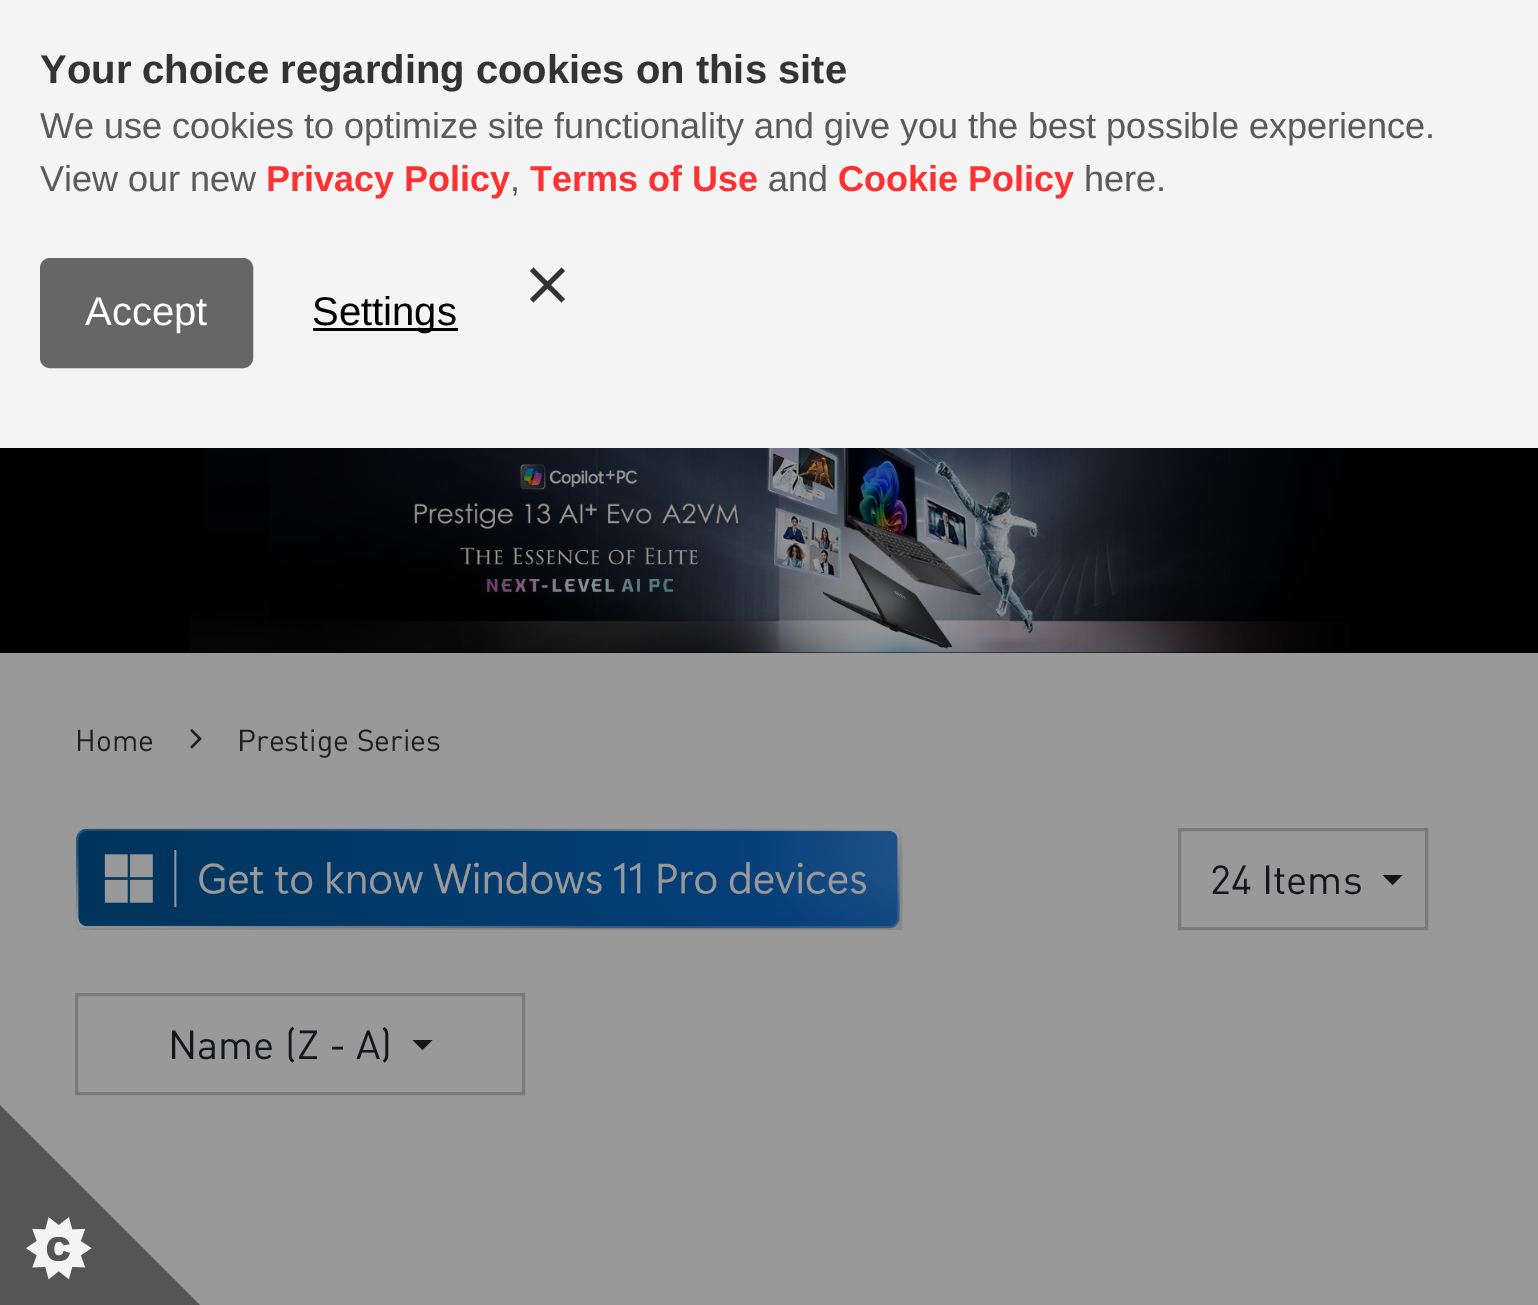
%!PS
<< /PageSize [1538 1305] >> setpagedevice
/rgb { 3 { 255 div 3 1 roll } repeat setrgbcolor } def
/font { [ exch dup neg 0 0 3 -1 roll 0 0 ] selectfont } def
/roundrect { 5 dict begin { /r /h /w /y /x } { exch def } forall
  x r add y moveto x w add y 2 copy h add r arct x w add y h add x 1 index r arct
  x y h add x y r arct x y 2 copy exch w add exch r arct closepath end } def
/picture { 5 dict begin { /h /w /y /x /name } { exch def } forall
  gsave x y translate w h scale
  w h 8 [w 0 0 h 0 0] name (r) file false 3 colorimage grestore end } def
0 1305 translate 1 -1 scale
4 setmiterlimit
153 153 153 rgb
0 0 1538 1305 rectfill
244 244 244 rgb
0 0 1538 448 rectfill
51 51 51 rgb
565 271 moveto 561.5 267.5 lineto 547.5 281.5 lineto 533.5 267.5 lineto 530 271 lineto 544 285 lineto 530 299 lineto 533.5 302.5 lineto 547.5 288.5 lineto 561.5 302.5 lineto 565 299 lineto 551 285 lineto closepath fill
102 102 102 rgb
42.5 260.5 208 105 7.5 roundrect gsave fill grestore
5 setlinewidth
stroke
0 0 0 rgb
313 328 145 3 rectfill
(img/1.rgb) 0 1105 200 200 picture
0 448 1538 205 rectfill
(img/2.rgb) 189 448 1160 205 picture
(img/3.rgb) 190 729 12 20 picture
(img/4.rgb) 75 828 828 102 picture
122 122 122 rgb
3 setlinewidth
1179.5 829.5 247 99 rectstroke
20 22 25 rgb
1382.5 875 moveto 1402.5 875 lineto 1392.5 885 lineto closepath fill
122 122 122 rgb
76.5 994.5 447 99 rectstroke
20 22 25 rgb
412.5 1040 moveto 432.5 1040 lineto 422.5 1050 lineto closepath fill
/LiberationSans-Bold 40 font
51 51 51 rgb
40 83 moveto (Your choice regarding cookies on this site) show
/LiberationSans-Regular 36 font
90 90 90 rgb
40 138 moveto (We use cookies to optimize site functionality and give you the best possible experience.) show
40 191 moveto (View our new) show
/LiberationSans-Bold 36 font
253 49 49 rgb
266 191 moveto (Privacy Policy) show
/LiberationSans-Regular 36 font
90 90 90 rgb
510 191 moveto (,) show
/LiberationSans-Bold 36 font
253 49 49 rgb
530 191 moveto (Terms of Use) show
/LiberationSans-Regular 36 font
90 90 90 rgb
768 191 moveto (and) show
/LiberationSans-Bold 36 font
253 49 49 rgb
838 191 moveto (Cookie Policy) show
/LiberationSans-Regular 36 font
90 90 90 rgb
1084 191 moveto (here.) show
/LiberationSans-Regular 40 font
255 255 255 rgb
85 325 moveto (Accept) show
0 0 0 rgb
312 325 moveto (Settings) show
/DIN-Regular 30 font
31 31 31 rgb
75 751 moveto (Home) show
237 751 moveto (Prestige Series) show
/DIN-Regular 40 font
20 22 25 rgb
1210 894 moveto (24 Items) show
168 1059 moveto (Name \(Z - A\)) show
showpage
